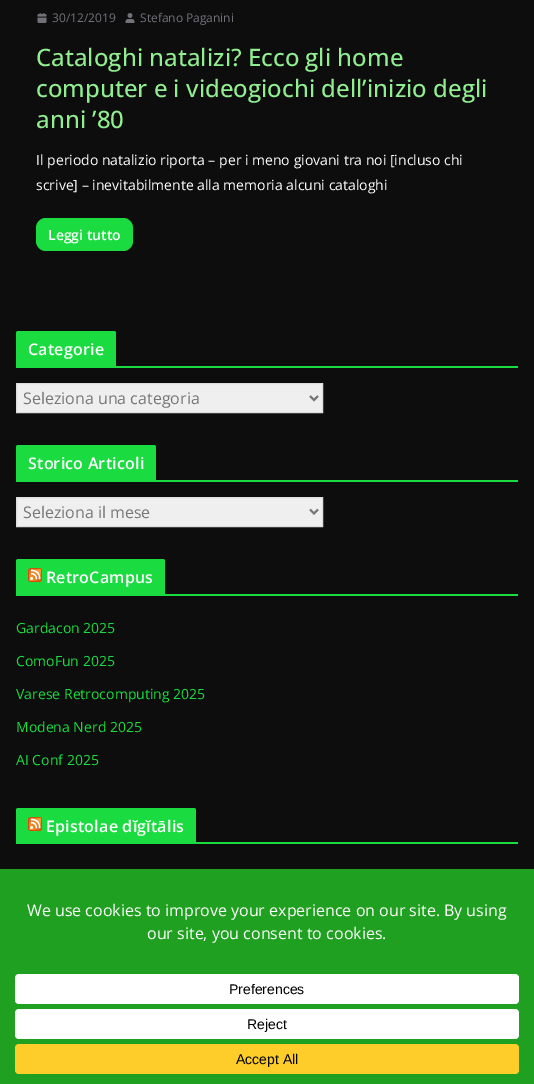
%!PS
<< /PageSize [534 1084] >> setpagedevice
/rgb { 3 { 255 div 3 1 roll } repeat setrgbcolor } def
/font { [ exch dup neg 0 0 3 -1 roll 0 0 ] selectfont } def
/roundrect { 5 dict begin { /r /h /w /y /x } { exch def } forall
  x r add y moveto x w add y 2 copy h add r arct x w add y h add x 1 index r arct
  x y h add x y r arct x y 2 copy exch w add exch r arct closepath end } def
/picture { 5 dict begin { /h /w /y /x /name } { exch def } forall
  gsave x y translate w h scale
  w h 8 [w 0 0 h 0 0] name (r) file false 3 colorimage grestore end } def
0 1084 translate 1 -1 scale
4 setmiterlimit
13 13 13 rgb
0 0 534 1084 rectfill
(img/1.rgb) 37 13 10 10 picture
(img/2.rgb) 125 13 10 10 picture
26 219 64 rgb
36 218 97 33 10 roundrect fill
16 366 502 2 rectfill
18 331 moveto 114 331 lineto 115 331 116 332 116 333 curveto 116 366 lineto 16 366 lineto 16 333 lineto 16 332 17 331 18 331 curveto closepath fill
239 239 239 rgb
16.5 383.5 moveto 322.5 383.5 lineto 322.5 412.5 lineto 16.5 412.5 lineto closepath gsave fill grestore
221 221 221 rgb
stroke
119 119 119 rgb
2 setlinewidth
310 396 moveto 314 400 lineto 318 396 lineto stroke
26 219 64 rgb
16 480 502 2 rectfill
18 445 moveto 154 445 lineto 155 445 156 446 156 447 curveto 156 480 lineto 16 480 lineto 16 447 lineto 16 446 17 445 18 445 curveto closepath fill
239 239 239 rgb
16.5 497.5 moveto 322.5 497.5 lineto 322.5 526.5 lineto 16.5 526.5 lineto closepath gsave fill grestore
221 221 221 rgb
1 setlinewidth
stroke
119 119 119 rgb
2 setlinewidth
310 509.5 moveto 314 513.5 lineto 318 509.5 lineto stroke
26 219 64 rgb
16 594 502 2 rectfill
18 559 moveto 163 559 lineto 164 559 165 560 165 561 curveto 165 594 lineto 16 594 lineto 16 561 lineto 16 560 17 559 18 559 curveto closepath fill
(img/3.rgb) 28 568 14 14 picture
16 842 502 2 rectfill
18 808 moveto 194 808 lineto 195 808 196 809 196 810 curveto 196 842 lineto 16 842 lineto 16 810 lineto 16 809 17 808 18 808 curveto closepath fill
(img/3.rgb) 28 817 14 14 picture
32 160 32 rgb
0 869 534 215 rectfill
255 255 255 rgb
15 974 504 30 4 roundrect fill
15 1009 504 30 4 roundrect fill
255 205 42 rgb
15 1044 504 30 4 roundrect fill
/OpenSans-Regular 12 font
113 113 122 rgb
52 22 moveto (30/12/2019) show
140 22 moveto (Stefano Paganini) show
/OpenSans-Medium 24 font
144 238 144 rgb
[
  [(Cataloghi natalizi? Ecco gli home) 36 66]
  [(computer e i videogiochi dell’inizio degli) 36 97]
  [(anni ’80) 36 128]
] { aload pop moveto show } forall
/OpenSans-Regular 14 font
255 255 255 rgb
36 165 moveto (Il periodo natalizio riporta – per i meno giovani tra noi [incluso chi) show
36 190 moveto (scrive] – inevitabilmente alla memoria alcuni cataloghi) show
/OpenSans-SemiBold 14 font
48 240 moveto (Leggi tutto) show
/OpenSans-SemiBold 16 font
28 355 moveto 0.2 0 (Categorie) ashow
/OpenSans-Regular 16 font
119 119 119 rgb
23 404 moveto (Seleziona una categoria) show
/OpenSans-SemiBold 16 font
255 255 255 rgb
28 469 moveto 0.2 0 (Storico Articoli) ashow
/OpenSans-Regular 16 font
119 119 119 rgb
23 518 moveto (Seleziona il mese) show
/OpenSans-SemiBold 16 font
255 255 255 rgb
46 583 moveto 0.2 0 (RetroCampus) ashow
/OpenSans-Regular 14 font
26 219 64 rgb
[
  [(Gardacon 2025) 16 633]
  [(ComoFun 2025) 16 666]
  [(Varese Retrocomputing 2025) 16 699]
  [(Modena Nerd 2025) 16 732]
  [(AI Conf 2025) 16 765]
] { aload pop moveto show } forall
/OpenSans-SemiBold 16 font
255 255 255 rgb
46 832 moveto 0.2 0 (Epistolae dĭgĭtālis) ashow
/OpenSans-Regular 16 font
27 916 moveto (We use cookies to improve your experience on our site. By using) show
147 939 moveto (our site, you consent to cookies.) show
/LiberationSans-Regular 14 font
0 0 0 rgb
[
  [(Preferences) 229 994]
  [(Reject) 247 1029]
  [(Accept All) 236 1064]
] { aload pop moveto show } forall
showpage
